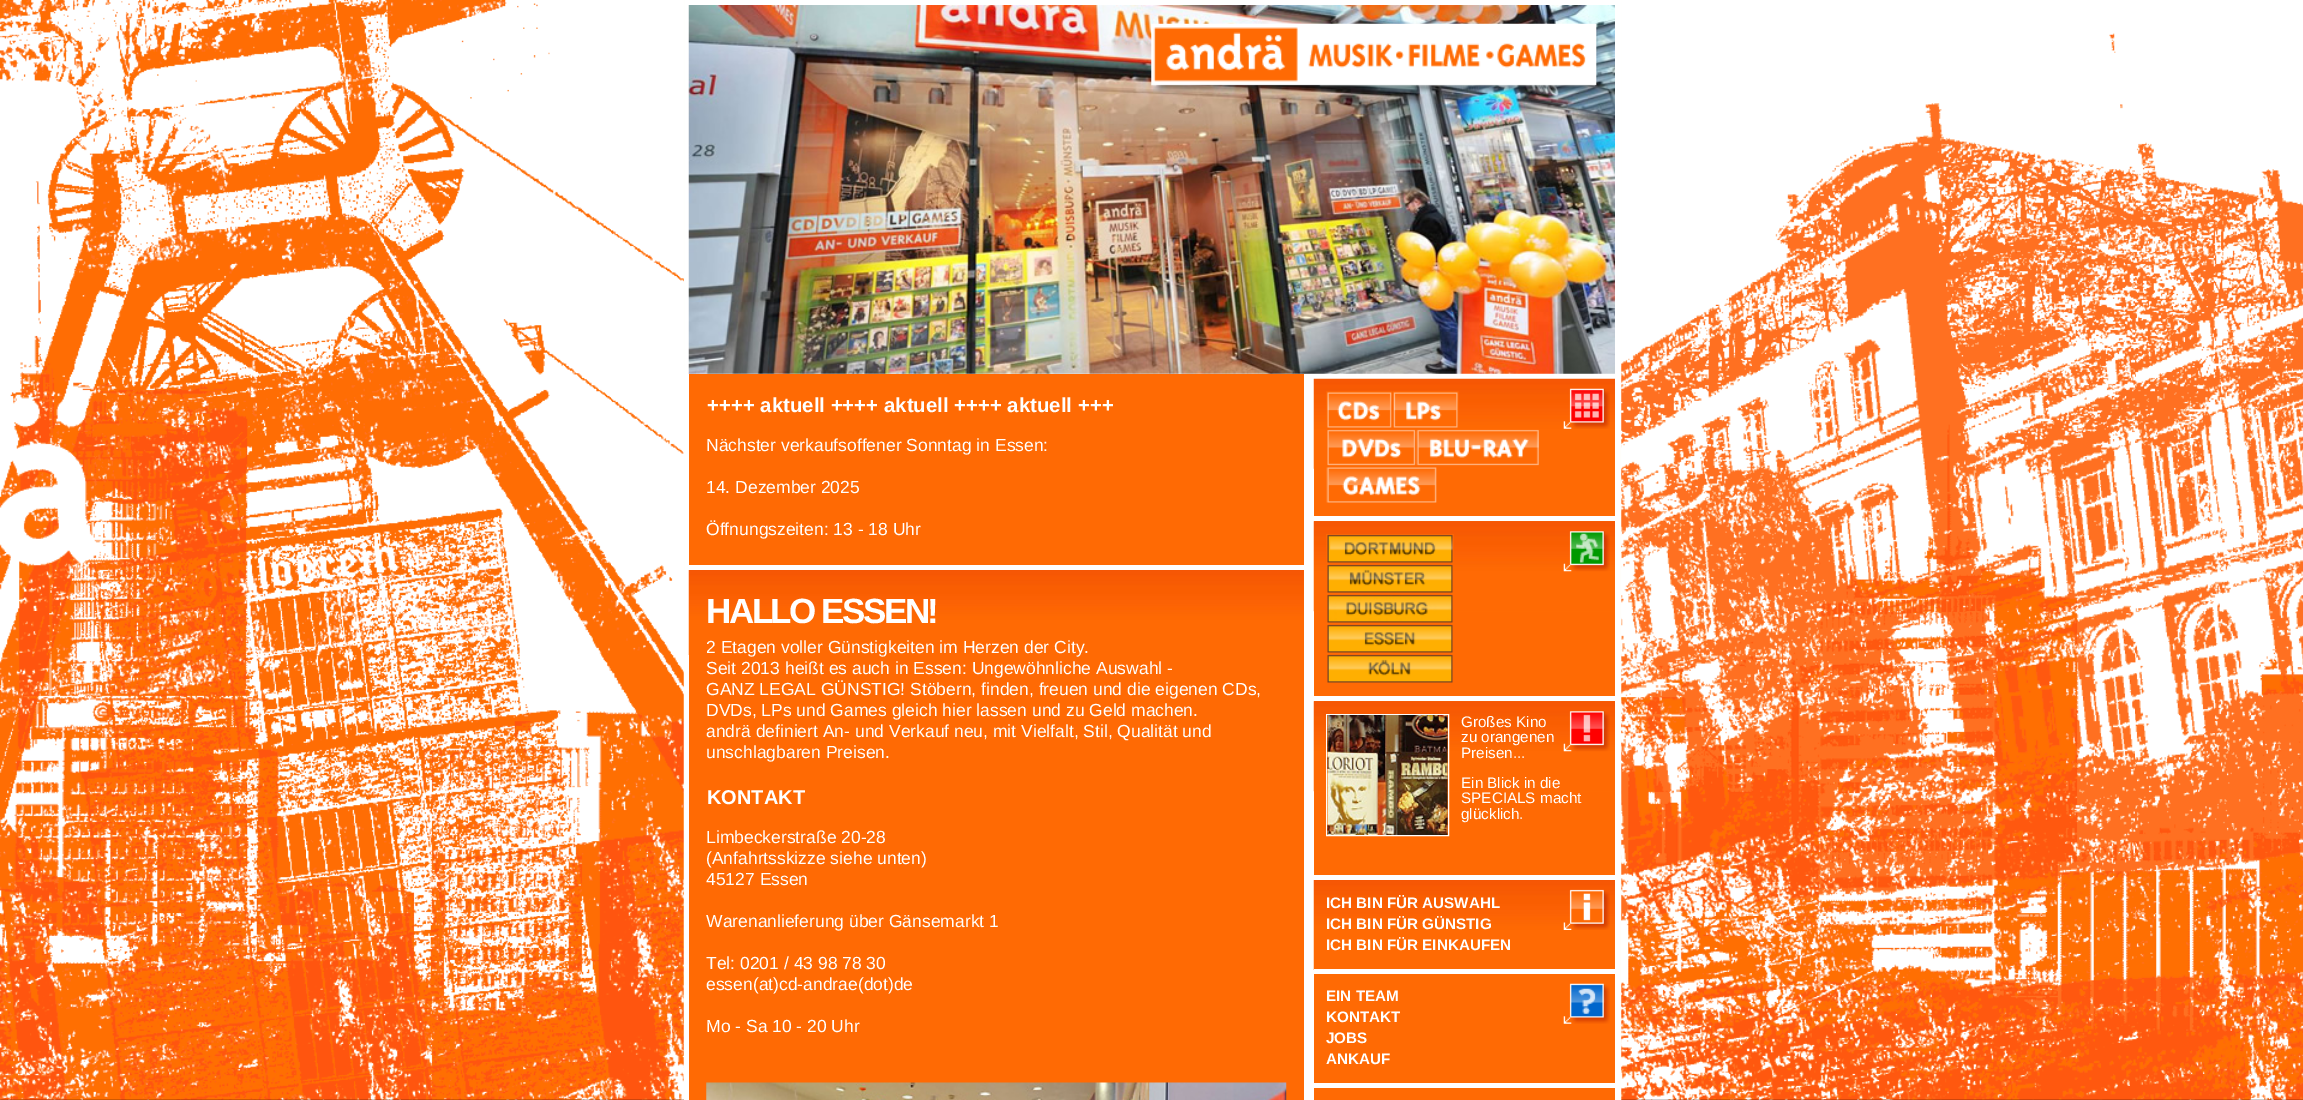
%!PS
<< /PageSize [2303 1100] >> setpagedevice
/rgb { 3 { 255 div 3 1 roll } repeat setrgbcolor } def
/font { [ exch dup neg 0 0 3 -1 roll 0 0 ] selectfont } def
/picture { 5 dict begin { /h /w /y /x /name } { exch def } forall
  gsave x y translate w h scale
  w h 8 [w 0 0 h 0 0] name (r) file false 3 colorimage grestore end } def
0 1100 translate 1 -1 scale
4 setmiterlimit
255 255 255 rgb
0 0 2303 1100 rectfill
(img/1.rgb) 0 0 2303 1100 picture
(img/2.rgb) 683 0 939 1100 picture
685 0 936 446 rectfill
(img/3.rgb) 688 5 927 369 picture
(img/4.rgb) 1151 23 447 70 picture
685 446 619 654 rectfill
255 106 4 rgb
689 374 615 726 rectfill
(img/5.rgb) 688 570 616 85 picture
255 255 255 rgb
689 565 615 5 rectfill
(img/6.rgb) 706 1082 581 18 picture
1313 446 307 654 rectfill
255 106 4 rgb
1314 468 301 632 rectfill
(img/7.rgb) 1313 378 302 91 picture
255 255 255 rgb
1314 516 301 5 rectfill
(img/8.rgb) 1326 391 67 37 picture
(img/9.rgb) 1393 391 66 37 picture
(img/10.rgb) 1327 429 89 37 picture
(img/11.rgb) 1416 429 123 37 picture
(img/12.rgb) 1326 467 111 36 picture
(img/13.rgb) 1563 388 47 41 picture
(img/14.rgb) 1313 521 302 91 picture
1314 696 301 5 rectfill
(img/15.rgb) 1326 534 128 29 picture
(img/16.rgb) 1327 564 126 29 picture
(img/17.rgb) 1327 594 126 29 picture
(img/18.rgb) 1327 624 126 29 picture
(img/19.rgb) 1327 654 126 29 picture
(img/20.rgb) 1563 531 47 41 picture
(img/21.rgb) 1313 701 302 91 picture
1314 875 301 5 rectfill
1326.5 714.5 122 121 rectstroke
(img/22.rgb) 1327 715 121 120 picture
(img/23.rgb) 1563 711 47 41 picture
(img/24.rgb) 1313 880 302 90 picture
1314 969 301 5 rectfill
(img/25.rgb) 1563 889 47 41 picture
1314 1083 301 5 rectfill
(img/26.rgb) 1563 983 47 41 picture
/LiberationSans-Bold 20.4 font
707 412 moveto (++++ aktuell ++++ aktuell ++++ aktuell +++) show
/LiberationSans-Regular 17.5 font
[
  [(Nächster verkaufsoffener Sonntag in Essen:) 706 451]
  [(14. Dezember 2025) 706 493]
  [(Öffnungszeiten: 13 - 18 Uhr) 706 535]
] { aload pop moveto show } forall
/LiberationSans-Bold 35 font
706 623 moveto -2.5 0 (HALLO ESSEN!) ashow
/LiberationSans-Regular 17.5 font
[
  [(2 Etagen voller Günstigkeiten im Herzen der City.) 706 653]
  [(Seit 2013 heißt es auch in Essen: Ungewöhnliche Auswahl -) 706 674]
  [(GANZ LEGAL GÜNSTIG! Stöbern, finden, freuen und die eigenen CDs,) 706 695]
  [(DVDs, LPs und Games gleich hier lassen und zu Geld machen.) 706 716]
  [(andrä definiert An- und Verkauf neu, mit Vielfalt, Stil, Qualität und) 706 737]
  [(unschlagbaren Preisen.) 706 758]
] { aload pop moveto show } forall
/LiberationSans-Bold 20 font
707 804 moveto (KONTAKT) show
/LiberationSans-Regular 17.5 font
[
  [(Limbeckerstraße 20-28) 706 843]
  [(\(Anfahrtsskizze siehe unten\)) 706 864]
  [(45127 Essen) 706 885]
  [(Warenanlieferung über Gänsemarkt 1) 706 927]
  [(Tel: 0201 / 43 98 78 30) 706 969]
  [(essen\(at\)cd-andrae\(dot\)de) 706 990]
  [(Mo - Sa 10 - 20 Uhr) 706 1032]
] { aload pop moveto show } forall
/LiberationSans-Regular 15.25 font
[
  [(Großes Kino) 1461 727]
  [(zu orangenen) 1461 742]
  [(Preisen...) 1461 758]
  [(Ein Blick in die) 1461 788]
  [(SPECIALS macht) 1461 803]
  [(glücklich.) 1461 819]
] { aload pop moveto show } forall
/LiberationSans-Bold 15.2 font
[
  [(ICH BIN FÜR AUSWAHL) 1326 908]
  [(ICH BIN FÜR GÜNSTIG) 1326 929]
  [(ICH BIN FÜR EINKAUFEN) 1326 950]
  [(EIN TEAM) 1326 1001]
  [(KONTAKT) 1326 1022]
  [(JOBS) 1326 1043]
  [(ANKAUF) 1326 1064]
] { aload pop moveto show } forall
showpage
